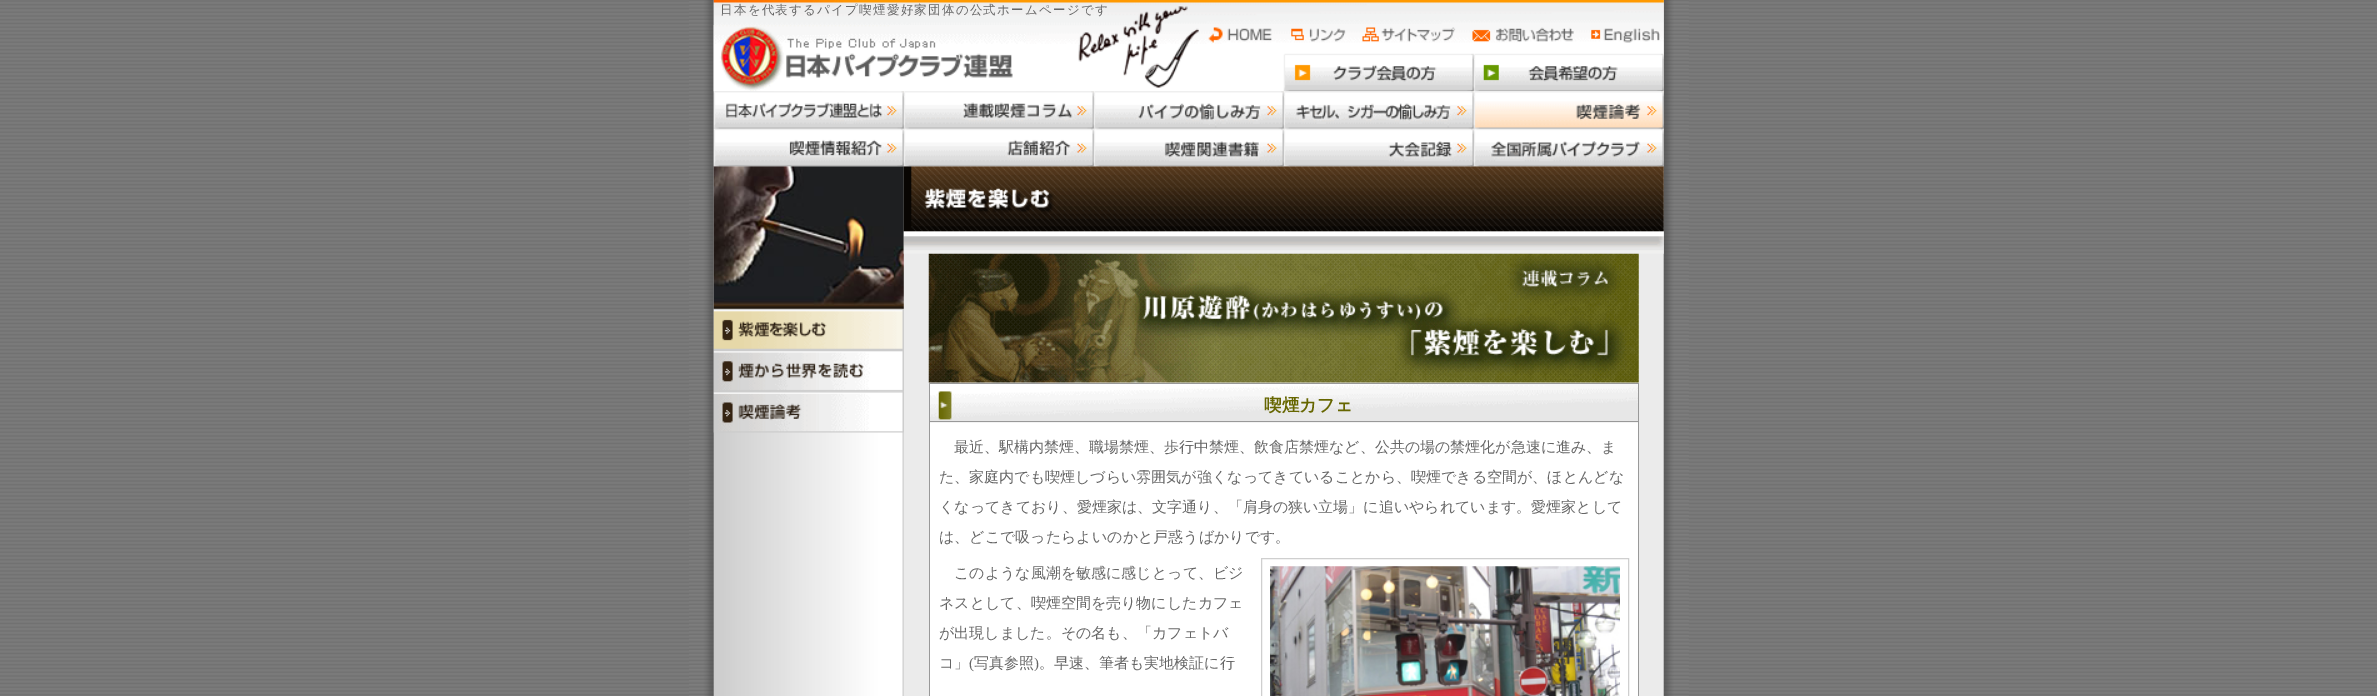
%!PS
<< /PageSize [2377 696] >> setpagedevice
/rgb { 3 { 255 div 3 1 roll } repeat setrgbcolor } def
/font { [ exch dup neg 0 0 3 -1 roll 0 0 ] selectfont } def
/picture { 5 dict begin { /h /w /y /x /name } { exch def } forall
  gsave x y translate w h scale
  w h 8 [w 0 0 h 0 0] name (r) file false 3 colorimage grestore end } def
0 696 translate 1 -1 scale
4 setmiterlimit
255 255 255 rgb
0 0 2377 696 rectfill
(img/1.rgb) 0 0 2377 696 picture
(img/2.rgb) 689 0 1000 696 picture
(img/3.rgb) 713 0 951 92 picture
(img/4.rgb) 713 25 313 67 picture
(img/5.rgb) 1208 27 452 16 picture
(img/6.rgb) 1283 53 381 39 picture
(img/7.rgb) 713 91 951 38 picture
(img/8.rgb) 1473 91 191 38 picture
(img/11.rgb) 713 308 191 42 picture
(img/10.rgb) 713 166 191 143 picture
(img/14.rgb) 903 166 761 88 picture
(img/9.rgb) 713 128 951 39 picture
(img/12.rgb) 713 350 191 42 picture
(img/13.rgb) 713 391 191 42 picture
(img/15.rgb) 928 253 711 130 picture
[
  [930 422 708 274 255 255 255]
  [929 383 710 1 153 153 153]
  [1638 383 1 313 153 153 153]
  [929 383 1 313 153 153 153]
] { aload pop rgb rectfill } forall
(img/16.rgb) 930 384 708 39 picture
929 421 710 1 rectfill
207 207 207 rgb
1261.5 558.5 367 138 rectstroke
(img/17.rgb) 1270 566 350 130 picture
/WenQuanYiZenHei-Medium 12.5 font
102 102 102 rgb
720 14 moveto 1.25 0 (日本を代表するパイプ喫煙愛好家団体の公式ホームページです) ashow
/WenQuanYiZenHei-Bold 17.5 font
102 102 0 rgb
1264 411 moveto (喫煙カフェ) show
/WenQuanYiZenHei-Medium 15 font
102 102 102 rgb
[
  [(最近、駅構内禁煙、職場禁煙、歩行中禁煙、飲食店禁煙など、公共の場の禁煙化が急速に進み、ま) 954 452]
  [(た、家庭内でも喫煙しづらい雰囲気が強くなってきていることから、喫煙できる空間が、ほとんどな) 939 482]
  [(くなってきており、愛煙家は、文字通り、「肩身の狭い立場」に追いやられています。愛煙家として) 939 512]
  [(は、どこで吸ったらよいのかと戸惑うばかりです。) 939 542]
  [(このような風潮を敏感に感じとって、ビジ) 954 578]
  [(ネスとして、喫煙空間を売り物にしたカフェ) 939 608]
  [(が出現しました。その名も、「カフェトバ) 939 638]
  [(コ」) 939 668]
] { aload pop moveto show } forall
/LiberationSerif-Regular 15 font
969 668 moveto (\() show
/WenQuanYiZenHei-Medium 15 font
974 668 moveto (写真参照) show
/LiberationSerif-Regular 15 font
1034 668 moveto (\)) show
/WenQuanYiZenHei-Medium 15 font
1039 668 moveto (。早速、筆者も実地検証に行) show
showpage
